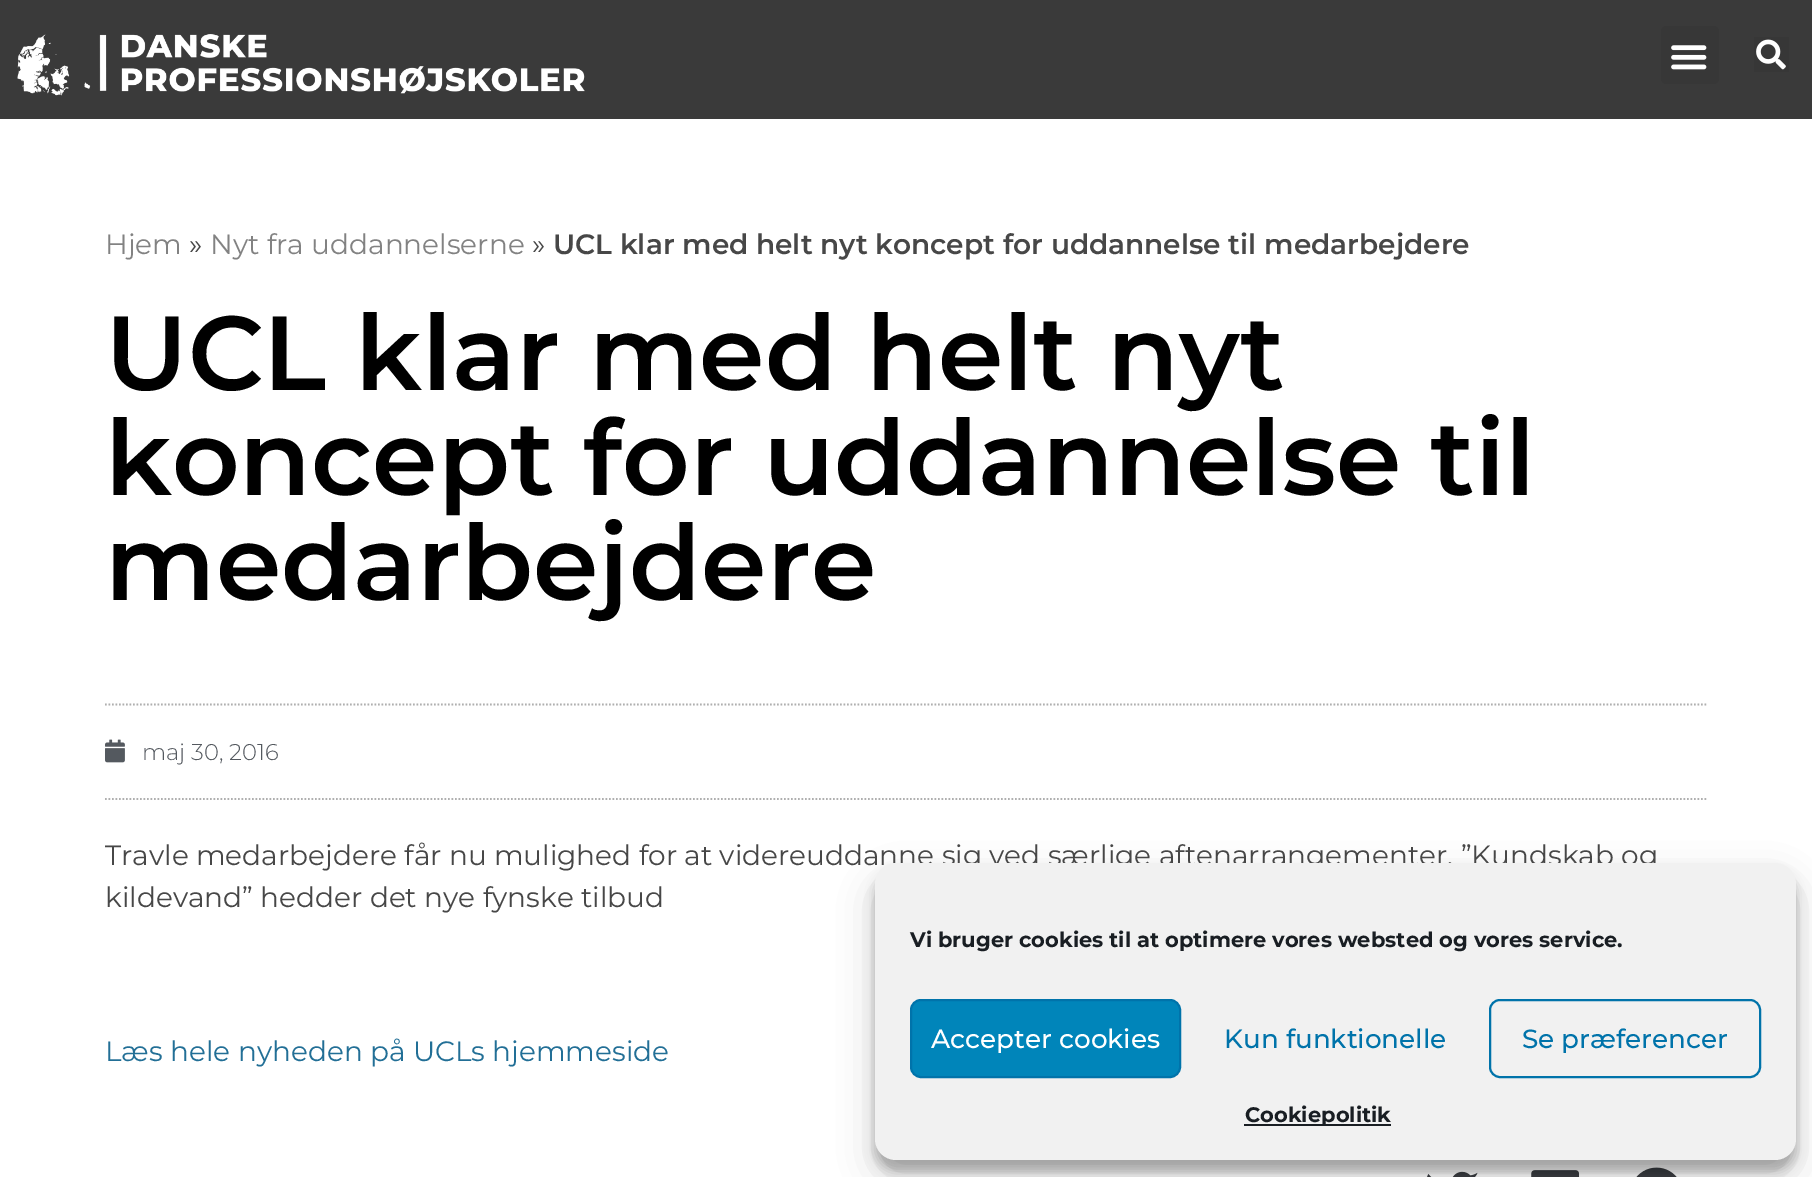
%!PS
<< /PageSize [1812 1177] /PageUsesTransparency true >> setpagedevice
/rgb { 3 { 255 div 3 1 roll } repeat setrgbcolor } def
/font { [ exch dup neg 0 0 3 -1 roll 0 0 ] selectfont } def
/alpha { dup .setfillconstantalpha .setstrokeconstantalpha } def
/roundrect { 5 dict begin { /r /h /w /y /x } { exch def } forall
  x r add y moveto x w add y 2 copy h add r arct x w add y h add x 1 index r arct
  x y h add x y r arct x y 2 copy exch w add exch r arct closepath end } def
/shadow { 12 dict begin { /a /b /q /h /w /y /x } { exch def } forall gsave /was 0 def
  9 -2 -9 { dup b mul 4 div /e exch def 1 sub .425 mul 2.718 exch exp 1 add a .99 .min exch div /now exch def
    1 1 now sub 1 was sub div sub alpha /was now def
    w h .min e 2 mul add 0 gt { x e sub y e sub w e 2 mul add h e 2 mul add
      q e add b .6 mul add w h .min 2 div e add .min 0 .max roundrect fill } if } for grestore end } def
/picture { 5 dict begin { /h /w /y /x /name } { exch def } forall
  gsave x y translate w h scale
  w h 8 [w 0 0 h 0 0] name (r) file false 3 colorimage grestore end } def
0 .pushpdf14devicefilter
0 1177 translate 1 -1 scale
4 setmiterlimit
255 255 255 rgb
0 0 1812 1177 rectfill
58 58 58 rgb
0 0 1812 119 rectfill
(img/1.rgb) 17 34 568 62 picture
55 55 55 rgb
1661 26 58 58 5 roundrect fill
(img/2.rgb) 1671 45 36 25 picture
1754 37 35 35 rectfill
(img/3.rgb) 1756 39 30 31 picture
175 175 175 rgb
1.8 setlinewidth
[1.75 1.75] 0 setdash
105 704.5 moveto 1708 704.5 lineto stroke
105 799 moveto 1708 799 lineto stroke
(img/4.rgb) 105 739 20 24 picture
(img/5.rgb) 1427 1171 51 6 picture
(img/6.rgb) 1531 1170 49 7 picture
(img/7.rgb) 1636 1167 41 10 picture
0 0 0 rgb
875 873 921 298 21 5 0.23 shadow
875 880 921 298 21 17.5 0.19 shadow
/Montserrat-Regular 28 font
130 130 130 rgb
105 254 moveto (Hjem) show
71 71 71 rgb
189 254 moveto (») show
130 130 130 rgb
210 254 moveto (Nyt fra uddannelserne) show
71 71 71 rgb
532 254 moveto (») show
/Montserrat-SemiBold 28 font
553 254 moveto (UCL klar med helt nyt koncept for uddannelse til medarbejdere) show
/Montserrat-SemiBold 105 font
0 0 0 rgb
[
  [(UCL klar med helt nyt) 105 390]
  [(koncept for uddannelse til) 105 495]
  [(medarbejdere) 105 600]
] { aload pop moveto show } forall
/Montserrat-Light 22.75 font
84 89 95 rgb
142 760 moveto (maj 30, 2016) show
/Montserrat-Regular 28 font
71 71 71 rgb
105 865 moveto (Travle medarbejdere får nu mulighed for at videreuddanne sig ved særlige aftenarrangementer. ”Kundskab og) show
105 907 moveto (kildevand” hedder det nye fynske tilbud) show
34 111 150 rgb
105 1061 moveto (Læs hele nyheden på UCLs hjemmeside) show
241 241 241 rgb
875 863 921 297 21 roundrect fill
/Montserrat-Bold 21 font
25 30 35 rgb
910 947 moveto (Vi bruger cookies til at optimere vores websted og vores service.) show
0 133 186 rgb
911 1000 269 77 10 roundrect gsave fill grestore
0 115 170 rgb
2 setlinewidth
[] 0 setdash
stroke
/Montserrat-Medium 26.25 font
255 255 255 rgb
931 1048 moveto (Accepter cookies) show
0 115 170 rgb
1224 1048 moveto (Kun funktionelle) show
1490 1000 270 77 10 roundrect stroke
1522 1048 moveto (Se præferencer) show
25 30 35 rgb
1244 1124 147 2 rectfill
/Montserrat-Bold 21 font
1245 1122 moveto (Cookiepolitik) show
.poppdf14devicefilter showpage
